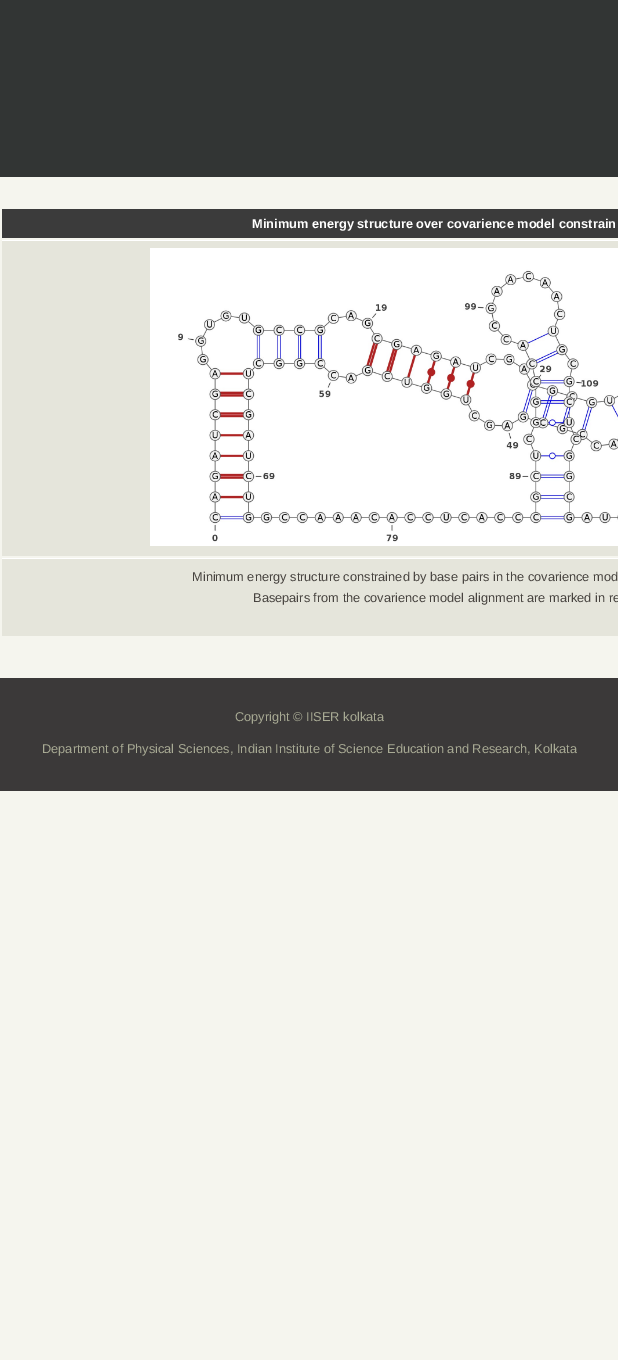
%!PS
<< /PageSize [618 1360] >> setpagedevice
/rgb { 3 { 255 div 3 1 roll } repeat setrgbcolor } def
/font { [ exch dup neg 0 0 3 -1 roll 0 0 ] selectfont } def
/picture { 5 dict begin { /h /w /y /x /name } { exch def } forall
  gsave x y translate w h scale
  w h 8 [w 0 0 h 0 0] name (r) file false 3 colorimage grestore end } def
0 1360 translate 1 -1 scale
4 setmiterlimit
245 245 238 rgb
0 0 618 1360 rectfill
[
  [0 0 618 177 50 53 52]
  [2 209 616 29 59 59 59]
  [2 241 616 315 229 229 219]
  [2 240 616 1 255 255 255]
] { aload pop rgb rectfill } forall
(img/1.rgb) 150 248 468 298 picture
[
  [2 559 616 77 229 229 219]
  [2 558 616 1 255 255 255]
  [0 678 618 113 59 57 57]
] { aload pop rgb rectfill } forall
/LiberationSans-Bold 12.8 font
255 255 255 rgb
252 228 moveto (Minimum energy structure over covarience model constrain) show
/LiberationSans-Regular 12.8 font
71 67 63 rgb
192 581 moveto (Minimum energy structure constrained by base pairs in the covarience mod) show
253 602 moveto (Basepairs from the covarience model alignment are marked in re) show
168 170 148 rgb
235 721 moveto (Copyright © IISER kolkata) show
42 753 moveto (Department of Physical Sciences, Indian Institute of Science Education and Research, Kolkata) show
showpage
